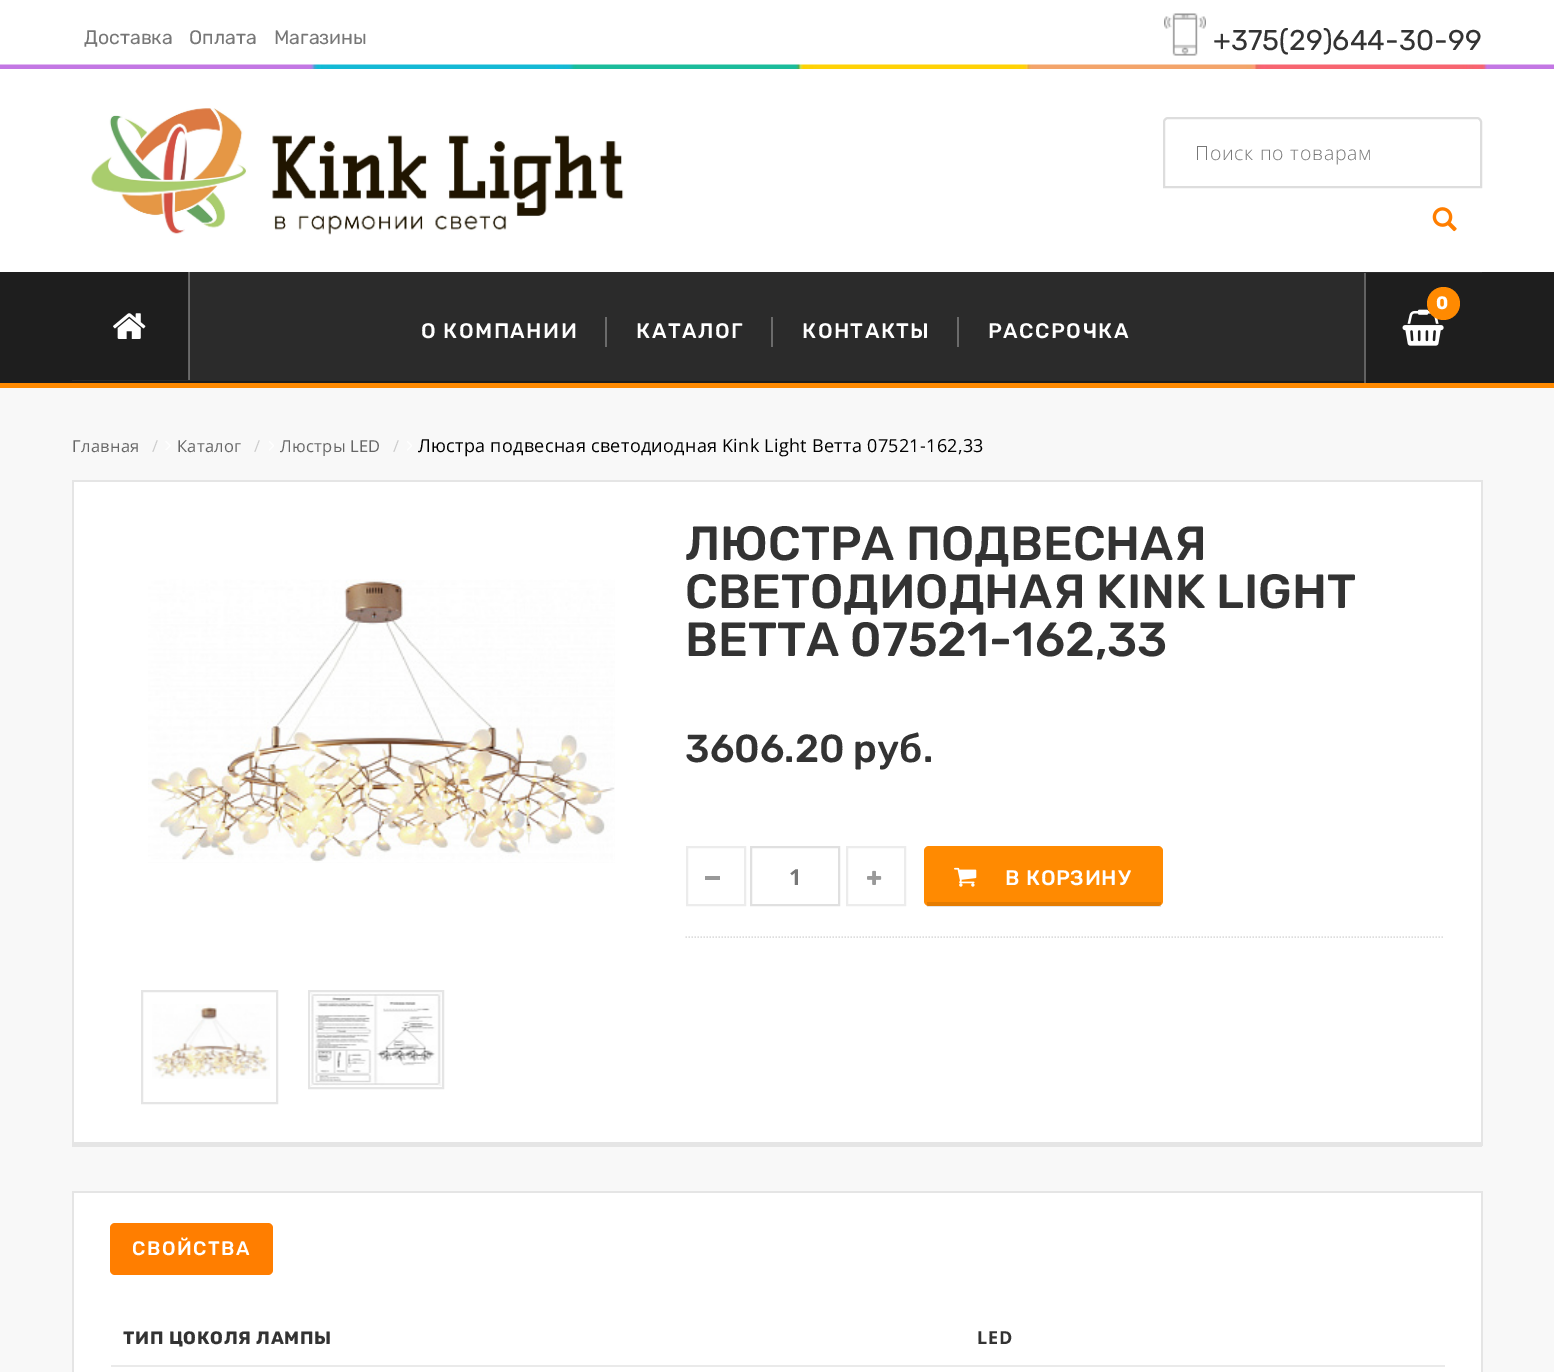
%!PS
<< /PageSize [1554 1372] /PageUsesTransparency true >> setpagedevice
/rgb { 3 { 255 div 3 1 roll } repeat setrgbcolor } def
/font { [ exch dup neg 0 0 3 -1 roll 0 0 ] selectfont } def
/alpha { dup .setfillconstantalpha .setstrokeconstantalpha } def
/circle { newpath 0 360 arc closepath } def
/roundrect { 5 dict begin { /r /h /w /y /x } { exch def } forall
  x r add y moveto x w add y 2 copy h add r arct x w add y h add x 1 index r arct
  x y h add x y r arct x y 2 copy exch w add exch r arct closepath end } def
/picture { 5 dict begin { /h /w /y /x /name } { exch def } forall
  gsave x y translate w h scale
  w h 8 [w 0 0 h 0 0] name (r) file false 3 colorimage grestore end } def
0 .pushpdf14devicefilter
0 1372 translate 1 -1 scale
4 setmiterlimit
248 248 248 rgb
0 0 1554 1372 rectfill
255 255 255 rgb
0 0 1554 272 rectfill
255 138 1 rgb
0 383 1554 5 rectfill
(img/1.rgb) 1164 13 42 43 picture
(img/2.rgb) 0 64 1554 5 picture
(img/3.rgb) 91 108 533 127 picture
221 221 221 rgb
2 setlinewidth
1168 118 moveto 1477 118 lineto 1479 118 1481 120 1481 122 curveto 1481 187 lineto 1164 187 lineto 1164 122 lineto 1164 120 1166 118 1168 118 curveto closepath stroke
(img/4.rgb) 1432 207 25 25 picture
[
  [0 272 1554 111 30 30 30]
  [72 272 1410 109 43 43 43]
  [1366 273 116 108 30 30 30]
  [1364 273 2 110 98 98 98]
] { aload pop rgb rectfill } forall
(img/5.rgb) 1402 309 42 37 picture
255 138 1 rgb
1443.5 303.5 16.5 circle fill
[
  [189 272 1 108 107 107 107]
  [72 272 116 108 30 30 30]
  [188 272 1 108 98 98 98]
] { aload pop rgb rectfill } forall
(img/6.rgb) 113 313 33 26 picture
[
  [605 317 2 30 107 107 107]
  [771 317 2 30 107 107 107]
  [957 317 2 30 107 107 107]
] { aload pop rgb rectfill } forall
(img/7.rgb) 165 441 6 9 picture
(img/8.rgb) 269 441 5 10 picture
(img/8.rgb) 407 441 5 10 picture
[
  [74 482 1407 660 255 255 255]
  [72 480 1410 2 229 229 229]
  [1481 480 2 666 229 229 229]
  [72 1142 1410 5 229 229 229]
  [72 480 2 666 229 229 229]
] { aload pop rgb rectfill } forall
(img/9.rgb) 148 579 467 284 picture
142 991 135 112 rectstroke
(img/10.rgb) 152 1004 118 75 picture
309 991 134 97 rectstroke
(img/11.rgb) 310 993 132 93 picture
221 221 221 rgb
1.5 setlinewidth
[1.5 1.5] 0 setdash
685.5 937 moveto 1443 937 lineto stroke
236 236 236 rgb
2 setlinewidth
[] 0 setdash
687 847 58 58 rectstroke
153 153 153 rgb
705 876 15 4 rectfill
224 224 224 rgb
751 847 88 58 rectstroke
236 236 236 rgb
847 847 58 58 rectstroke
(img/12.rgb) 867 870 15 15 picture
255 138 1 rgb
924 846 239 60 5 roundrect fill
0.1 alpha
0 0 0 rgb
927 902 234 5 rectfill
1 alpha
(img/13.rgb) 954 867 23 20 picture
[
  [74 1193 1407 179 255 255 255]
  [72 1191 1410 2 229 229 229]
  [1481 1191 2 181 229 229 229]
  [72 1191 2 181 229 229 229]
] { aload pop rgb rectfill } forall
255 126 0 rgb
110 1223 163 52 5 roundrect fill
234 234 234 rgb
111 1365 1334 2 rectfill
/Rubik-Regular 19.5 font
119 119 119 rgb
[
  [(Доставка) 84 44]
  [(Оплата) 189 44]
  [(Магазины) 274 44]
] { aload pop moveto show } forall
/Rubik-Regular 28.5 font
51 51 51 rgb
1213 50 moveto (+375\(29\)644-30-99) show
/OpenSans-Light 19.5 font
119 119 119 rgb
1195 160 moveto 0.75 0 (Поиск по товарам) ashow
/Rubik-Bold 18 font
255 255 255 rgb
1436 309 moveto 1.5 0 (0) ashow
/Rubik-Medium 21 font
421 338 moveto 1.5 0 (О КОМПАНИИ) ashow
636 338 moveto 1.5 0 (КАТАЛОГ) ashow
802 338 moveto 1.5 0 (КОНТАКТЫ) ashow
988 338 moveto 1.5 0 (РАССРОЧКА) ashow
/OpenSans-Regular 16.5 font
102 102 102 rgb
72 452 moveto 0.3 0 (Главная) ashow
204 204 204 rgb
152 452 moveto 0.3 0 (/) ashow
102 102 102 rgb
177 452 moveto 0.3 0 (Каталог) ashow
204 204 204 rgb
254 452 moveto 0.3 0 (/) ashow
102 102 102 rgb
280 452 moveto 0.3 0 (Люстры LED) ashow
204 204 204 rgb
393 452 moveto 0.3 0 (/) ashow
/OpenSans-Regular 18 font
0 0 0 rgb
418 452 moveto 0.3 0 (Люстра подвесная светодиодная Kink Light Ветта 07521-162,33) ashow
/Rubik-Medium 48 font
51 51 51 rgb
[
  [(ЛЮСТРА ПОДВЕСНАЯ) 685 560]
  [(СВЕТОДИОДНАЯ KINK LIGHT) 685 608]
  [(ВЕТТА 07521-162,33) 685 656]
] { aload pop moveto show } forall
/Rubik-Medium 39 font
685 762 moveto (3606.20 руб.) show
/OpenSans-Bold 22 font
119 119 119 rgb
789 885 moveto (1) show
/Rubik-Medium 21 font
255 255 255 rgb
1005 885 moveto 0.75 0 (В КОРЗИНУ) ashow
/Rubik-Medium 19.5 font
132 1255 moveto 1.5 0 (СВОЙСТВА) ashow
/Rubik-Bold 18 font
51 51 51 rgb
123 1344 moveto 0.75 0 (ТИП ЦОКОЛЯ ЛАМПЫ) ashow
/OpenSans-Bold 18 font
977 1344 moveto 0.75 0 (LED) ashow
.poppdf14devicefilter showpage
